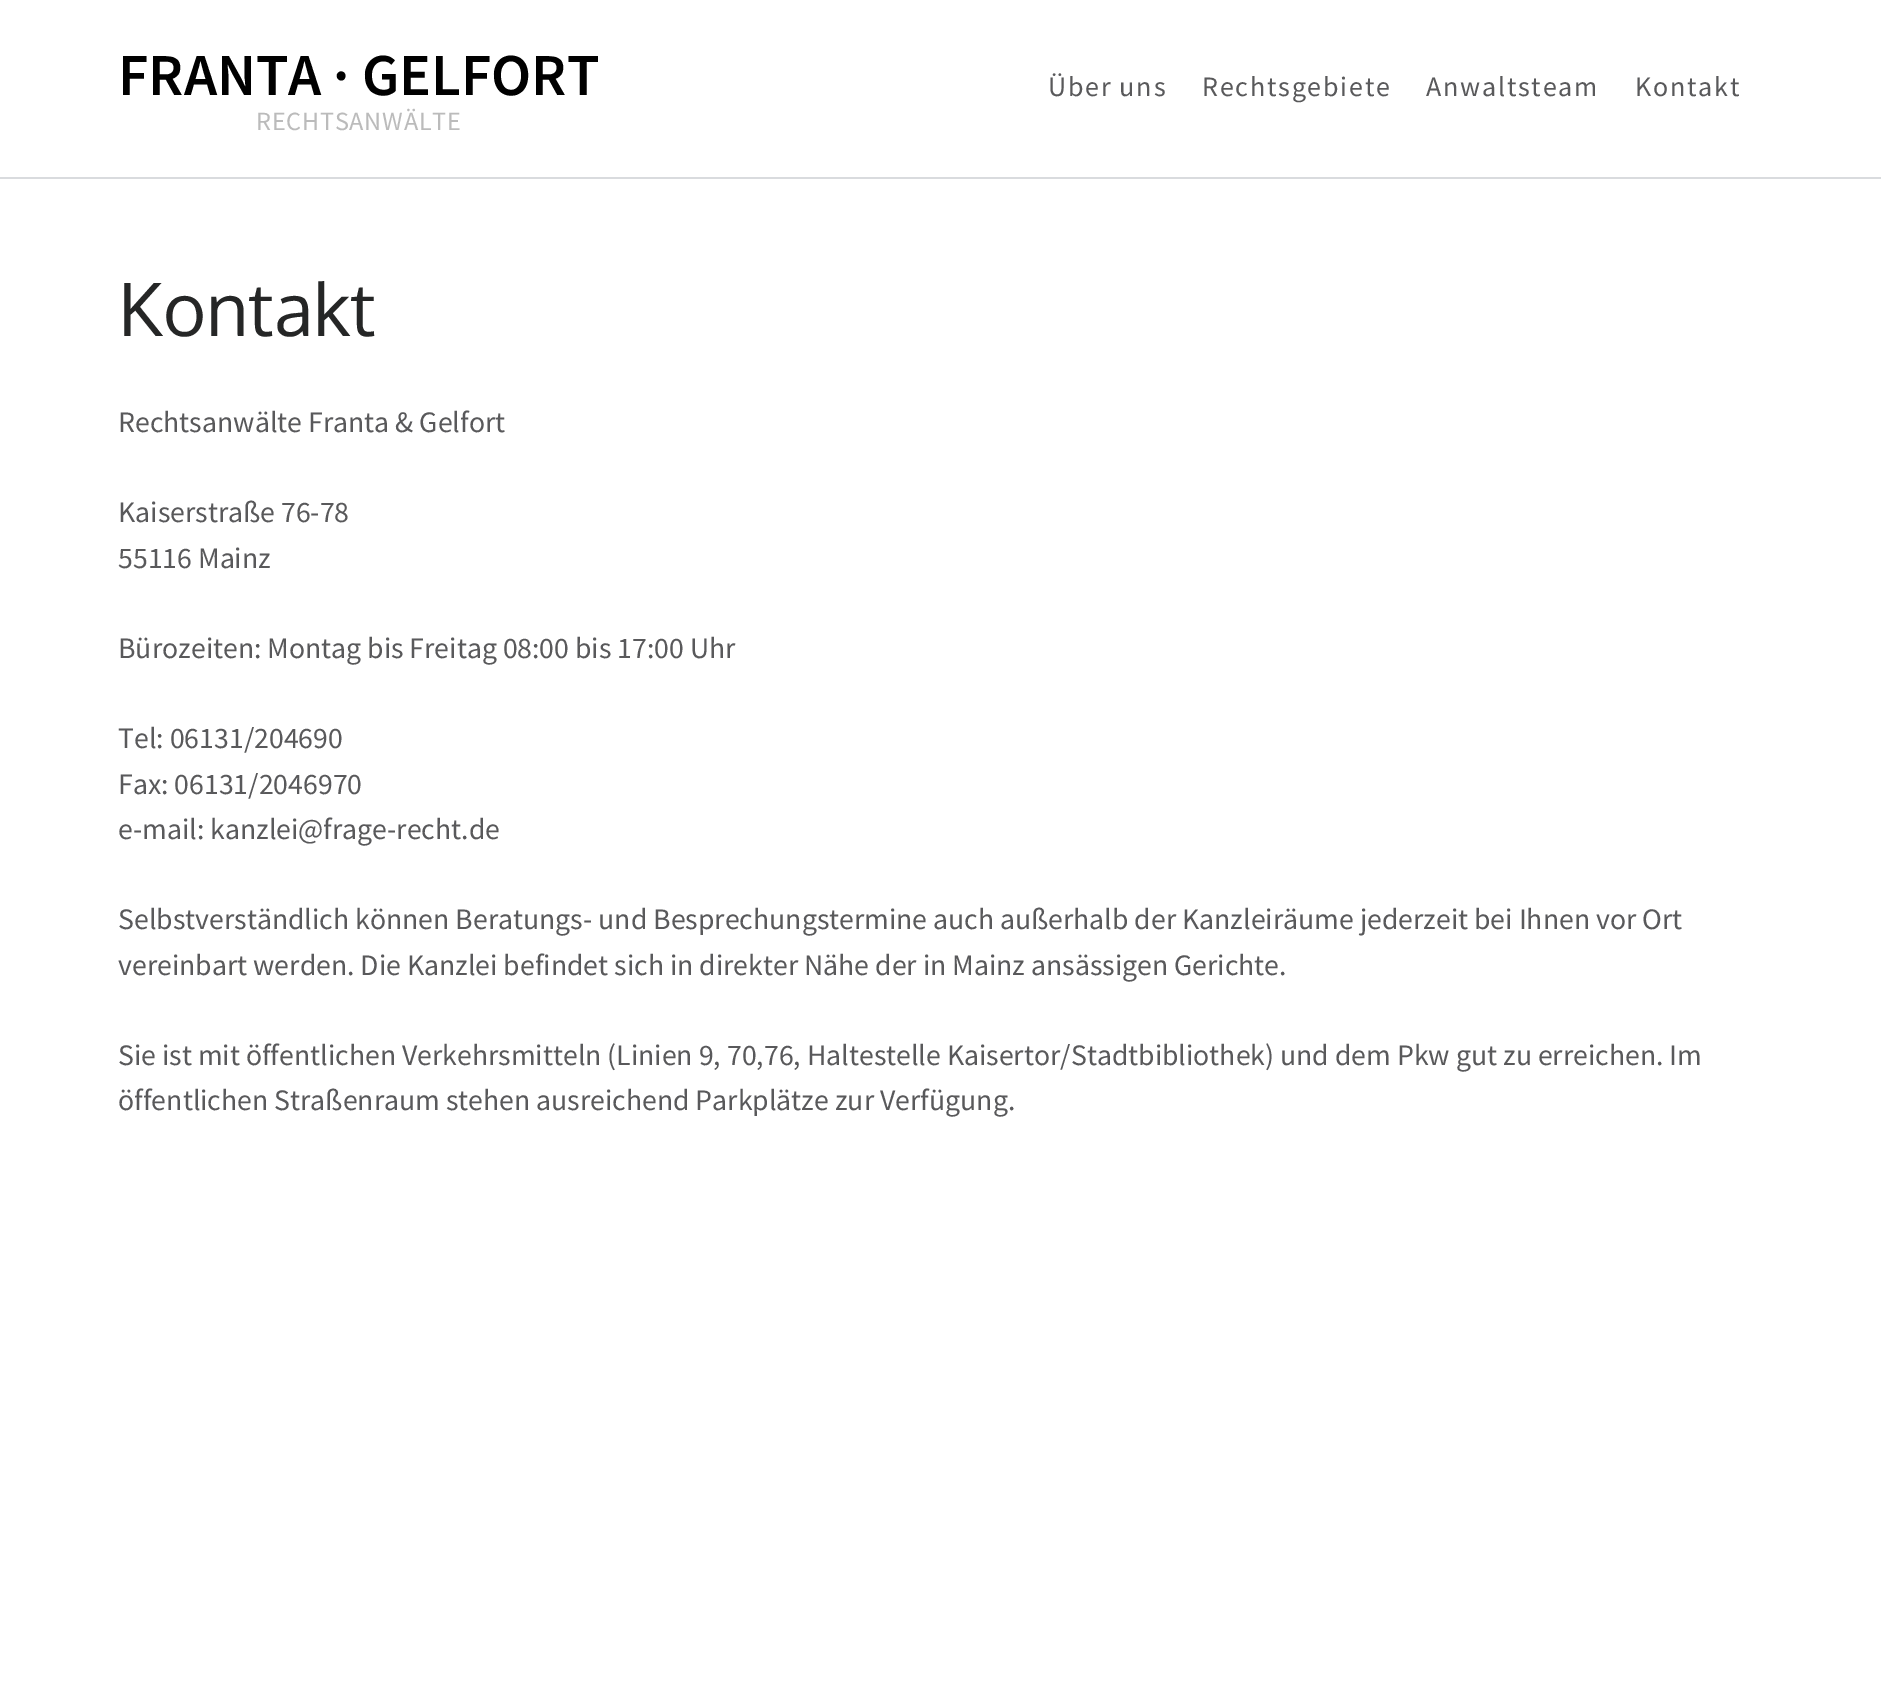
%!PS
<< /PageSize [1881 1683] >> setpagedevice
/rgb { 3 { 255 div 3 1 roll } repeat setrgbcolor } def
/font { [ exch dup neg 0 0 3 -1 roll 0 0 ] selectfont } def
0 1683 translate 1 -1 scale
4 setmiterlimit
255 255 255 rgb
0 0 1881 1683 rectfill
217 219 222 rgb
0 177 1881 2 rectfill
/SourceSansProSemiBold-SemiBold 59.5 font
0 0 0 rgb
118 95 moveto (FRANTA · GELFORT) show
/SourceSansPro-Regular 26.25 font
187 187 187 rgb
256 130 moveto 0.75 0 (RECHTSANWÄLTE) ashow
/SourceSansPro-Regular 28 font
89 89 91 rgb
1048 96 moveto 1.75 0 (Über uns) ashow
1202 96 moveto 1.75 0 (Rechtsgebiete) ashow
1426 96 moveto 1.75 0 (Anwaltsteam) ashow
1635 96 moveto 1.75 0 (Kontakt) ashow
/Oxygen-Regular 73.5 font
37 38 38 rgb
118 336 moveto (Kontakt) show
/SourceSansPro-Regular 29.75 font
89 89 91 rgb
[
  [(Rechtsanwälte Franta & Gelfort) 118 432]
  [(Kaiserstraße 76-78) 118 522]
  [(55116 Mainz) 118 568]
  [(Bürozeiten: Montag bis Freitag 08:00 bis 17:00 Uhr) 118 658]
  [(Tel: 06131/204690) 118 748]
  [(Fax: 06131/2046970) 118 794]
  [(e-mail: kanzlei@frage-recht.de) 118 839]
  [(Selbstverständlich können Beratungs- und Besprechungstermine auch außerhalb der Kanzleiräume jederzeit bei Ihnen vor Ort) 118 929]
  [(vereinbart werden. Die Kanzlei befindet sich in direkter Nähe der in Mainz ansässigen Gerichte.) 118 975]
  [(Sie ist mit öffentlichen Verkehrsmitteln \(Linien 9, 70,76, Haltestelle Kaisertor/Stadtbibliothek\) und dem Pkw gut zu erreichen. Im) 118 1065]
  [(öffentlichen Straßenraum stehen ausreichend Parkplätze zur Verfügung.) 118 1110]
] { aload pop moveto show } forall
showpage
